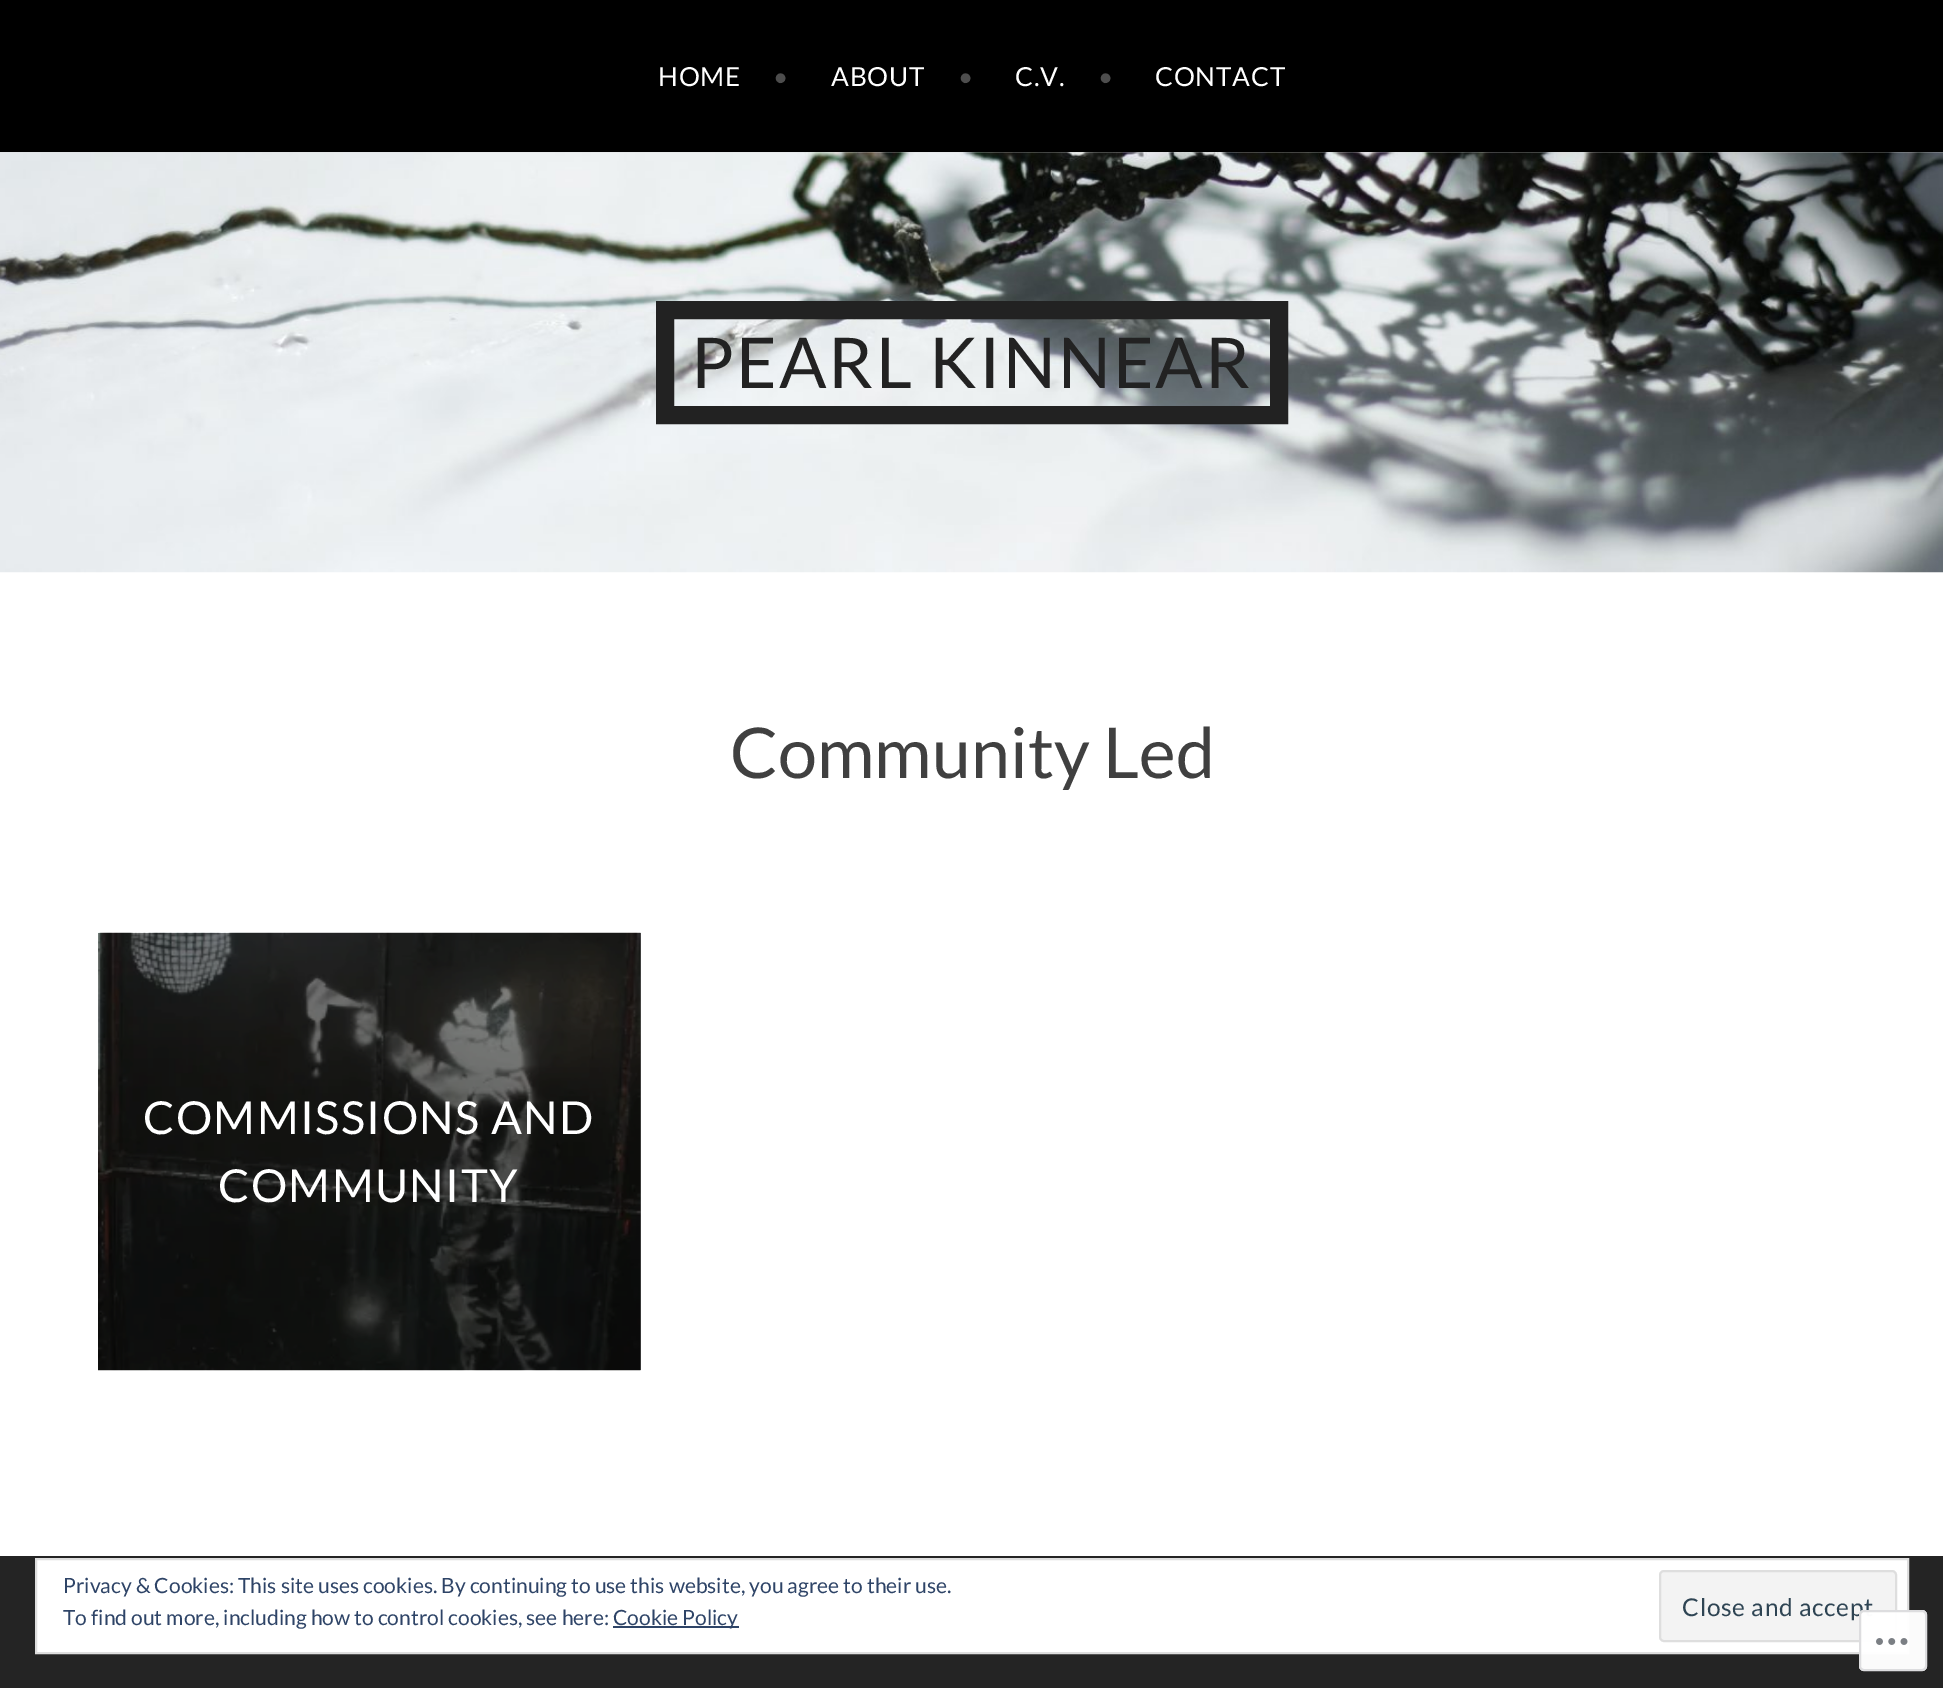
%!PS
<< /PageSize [1943 1688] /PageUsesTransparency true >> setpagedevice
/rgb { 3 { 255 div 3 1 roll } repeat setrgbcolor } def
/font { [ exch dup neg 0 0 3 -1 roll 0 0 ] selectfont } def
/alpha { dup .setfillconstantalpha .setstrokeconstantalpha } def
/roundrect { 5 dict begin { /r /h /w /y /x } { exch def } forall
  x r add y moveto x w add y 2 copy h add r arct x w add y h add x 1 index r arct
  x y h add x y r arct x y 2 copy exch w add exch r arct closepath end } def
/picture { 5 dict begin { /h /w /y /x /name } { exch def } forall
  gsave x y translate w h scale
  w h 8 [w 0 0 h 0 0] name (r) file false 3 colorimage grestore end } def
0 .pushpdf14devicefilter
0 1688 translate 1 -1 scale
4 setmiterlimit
255 255 255 rgb
0 0 1943 1688 rectfill
0 0 0 rgb
0 0 1943 152 rectfill
(img/1.rgb) 0 152 1943 421 picture
34 34 34 rgb
18 setlinewidth
665 310 614 105 rectstroke
102 102 102 rgb
640 933 1 437 rectfill
(img/2.rgb) 98 932 543 439 picture
36 36 36 rgb
0 1556 1943 132 rectfill
255 255 255 rgb
36 1559 moveto 1908 1559 lineto 1908 1653 lineto 36 1653 lineto closepath gsave fill grestore
222 222 222 rgb
2 setlinewidth
stroke
46 68 103 rgb
613 1626 126 2 rectfill
243 243 243 rgb
1660 1571 236 70 4 roundrect gsave fill grestore
222 222 222 rgb
stroke
/Lato-Regular 26.25 font
255 255 255 rgb
658 86 moveto 0.75 0 (HOME) ashow
77 77 77 rgb
773 86 moveto 0.75 0 (•) ashow
255 255 255 rgb
831 86 moveto 0.75 0 (ABOUT) ashow
77 77 77 rgb
958 86 moveto 0.75 0 (•) ashow
255 255 255 rgb
1015 86 moveto 0.75 0 (C.V.) ashow
77 77 77 rgb
1098 86 moveto 0.75 0 (•) ashow
255 255 255 rgb
1155 86 moveto 0.75 0 (CONTACT) ashow
/Lato-Regular 70 font
34 34 34 rgb
691 388 moveto 2.1 0 (PEARL KINNEAR) ashow
64 64 64 rgb
730 778 moveto (Community Led) show
/Lato-Regular 45.5 font
255 255 255 rgb
143 1134 moveto 1.4 0 (COMMISSIONS AND) ashow
218 1202 moveto 1.4 0 (COMMUNITY) ashow
/Lato-Regular 21 font
46 68 103 rgb
[
  [(Privacy & Cookies: This site uses cookies. By continuing to use this website, you agree to their use.) 63 1593]
  [(To find out more, including how to control cookies, see here:) 63 1625]
  [(Cookie Policy) 613 1625]
] { aload pop moveto show } forall
/Lato-Regular 24.5 font
46 68 83 rgb
1682 1616 moveto 0.75 0 (Close and accept) ashow
0.98 alpha
255 255 255 rgb
1859 1610 68 61 5 roundrect fill
220 220 222 rgb
1860 1611 66 59 4 roundrect stroke
1 alpha
(img/3.rgb) 1876 1638 32 7 picture
.poppdf14devicefilter showpage
